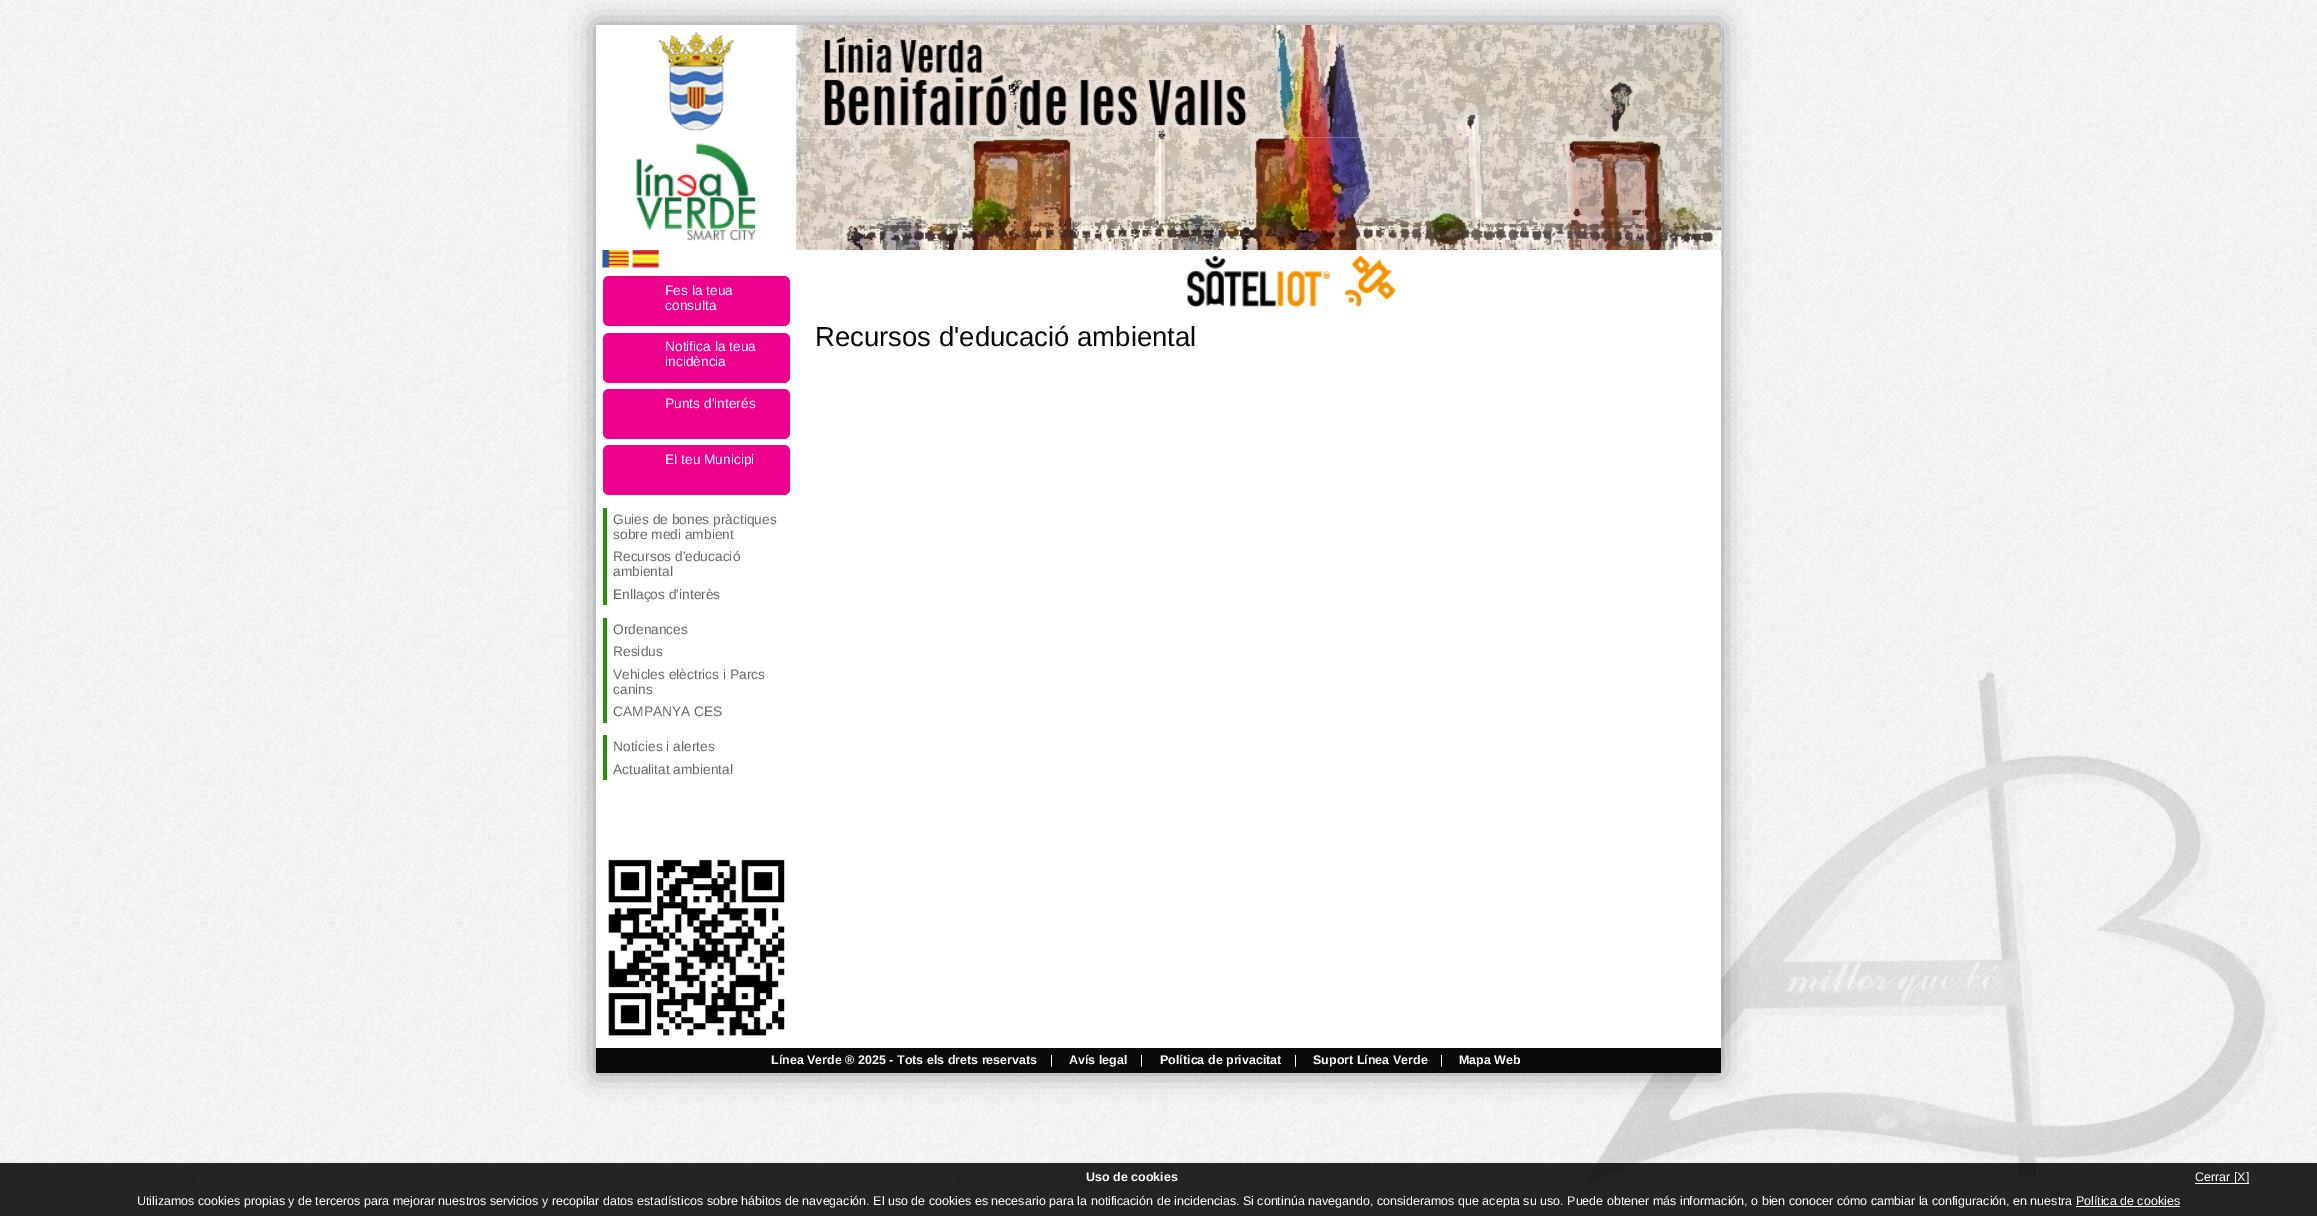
%!PS
<< /PageSize [2317 1216] /PageUsesTransparency true >> setpagedevice
/rgb { 3 { 255 div 3 1 roll } repeat setrgbcolor } def
/font { [ exch dup neg 0 0 3 -1 roll 0 0 ] selectfont } def
/alpha { dup .setfillconstantalpha .setstrokeconstantalpha } def
/roundrect { 5 dict begin { /r /h /w /y /x } { exch def } forall
  x r add y moveto x w add y 2 copy h add r arct x w add y h add x 1 index r arct
  x y h add x y r arct x y 2 copy exch w add exch r arct closepath end } def
/shadow { 12 dict begin { /a /b /q /h /w /y /x } { exch def } forall gsave /was 0 def
  9 -2 -9 { dup b mul 4 div /e exch def 1 sub .425 mul 2.718 exch exp 1 add a .99 .min exch div /now exch def
    1 1 now sub 1 was sub div sub alpha /was now def
    w h .min e 2 mul add 0 gt { x e sub y e sub w e 2 mul add h e 2 mul add
      q e add b .6 mul add w h .min 2 div e add .min 0 .max roundrect fill } if } for grestore end } def
/picture { 5 dict begin { /h /w /y /x /name } { exch def } forall
  gsave x y translate w h scale
  w h 8 [w 0 0 h 0 0] name (r) file false 3 colorimage grestore end } def
0 .pushpdf14devicefilter
0 1216 translate 1 -1 scale
4 setmiterlimit
255 255 255 rgb
0 0 2317 1216 rectfill
(img/1.rgb) 0 0 2317 1216 picture
0 0 0 rgb
596 25 1125 1048 0 12.5 0.4 shadow
255 255 255 rgb
596 25 1125 1023 rectfill
(img/2.rgb) 658 25 1064 113 picture
(img/3.rgb) 636 143 120 98 picture
(img/4.rgb) 796 137 926 113 picture
(img/5.rgb) 1187 256 535 51 picture
(img/6.rgb) 602 250 27 18 picture
(img/7.rgb) 632 250 27 18 picture
237 0 140 rgb
603 276 187 50 6 roundrect fill
603 333 187 50 6 roundrect fill
603 389 187 50 6 roundrect fill
603 445 187 50 6 roundrect fill
[
  [603 508 4 97 37 150 3]
  [603 618 4 105 37 150 3]
  [603 735 4 45 37 150 3]
] { aload pop rgb rectfill } forall
(img/8.rgb) 608 859 177 177 picture
[
  [596 1048 1125 25 10 10 10]
] { aload pop rgb rectfill } forall
0.85 alpha
[
  [0 1163 2317 53 0 0 0]
] { aload pop rgb rectfill } forall
1 alpha
[
  [2195 1183 54 1 255 255 255]
  [2076 1206 104 1 255 255 255]
] { aload pop rgb rectfill } forall
/LiberationSans-Regular 13.75 font
[
  [(Fes la teua) 665 295]
  [(consulta) 665 310]
  [(Notifica la teua) 665 351]
  [(incidència) 665 366]
  [(Punts d'interés) 665 408]
  [(El teu Municipi) 665 464]
] { aload pop moveto show } forall
102 102 102 rgb
[
  [(Guies de bones pràctiques) 613 524]
  [(sobre medi ambient) 613 539]
  [(Recursos d'educació) 613 561]
  [(ambiental) 613 576]
  [(Enllaços d'interès) 613 599]
  [(Ordenances) 613 634]
  [(Residus) 613 656]
  [(Vehicles elèctrics i Parcs) 613 679]
  [(canins) 613 694]
  [(CAMPANYA CES) 613 716]
  [(Notícies i alertes) 613 751]
  [(Actualitat ambiental) 613 774]
] { aload pop moveto show } forall
/LiberationSans-Regular 27.5 font
10 10 10 rgb
815 346 moveto (Recursos d'educació ambiental) show
/LiberationSans-Bold 12.5 font
255 255 255 rgb
771 1064 moveto (Línea Verde ® 2025 - Tots els drets reservats) show
/LiberationSans-Regular 12.5 font
1050 1064 moveto (|) show
/LiberationSans-Bold 12.5 font
1069 1064 moveto (Avís legal) show
/LiberationSans-Regular 12.5 font
1140 1064 moveto (|) show
/LiberationSans-Bold 12.5 font
1160 1064 moveto (Política de privacitat) show
/LiberationSans-Regular 12.5 font
1294 1064 moveto (|) show
/LiberationSans-Bold 12.5 font
1313 1064 moveto (Suport Línea Verde) show
/LiberationSans-Regular 12.5 font
1440 1064 moveto (|) show
/LiberationSans-Bold 12.5 font
1459 1064 moveto (Mapa Web) show
1086 1181 moveto (Uso de cookies) show
/LiberationSans-Regular 12.5 font
2195 1181 moveto (Cerrar [X]) show
137 1205 moveto (Utilizamos cookies propias y de terceros para mejorar nuestros servicios y recopilar datos estadísticos sobre hábitos de navegación. El uso de cookies es necesario para la notificación de incidencias. Si continúa navegando, consideramos que acepta su uso. Puede obtener más información, o bien conocer cómo cambiar la configuración, en nuestra Política de cookies) show
.poppdf14devicefilter showpage
